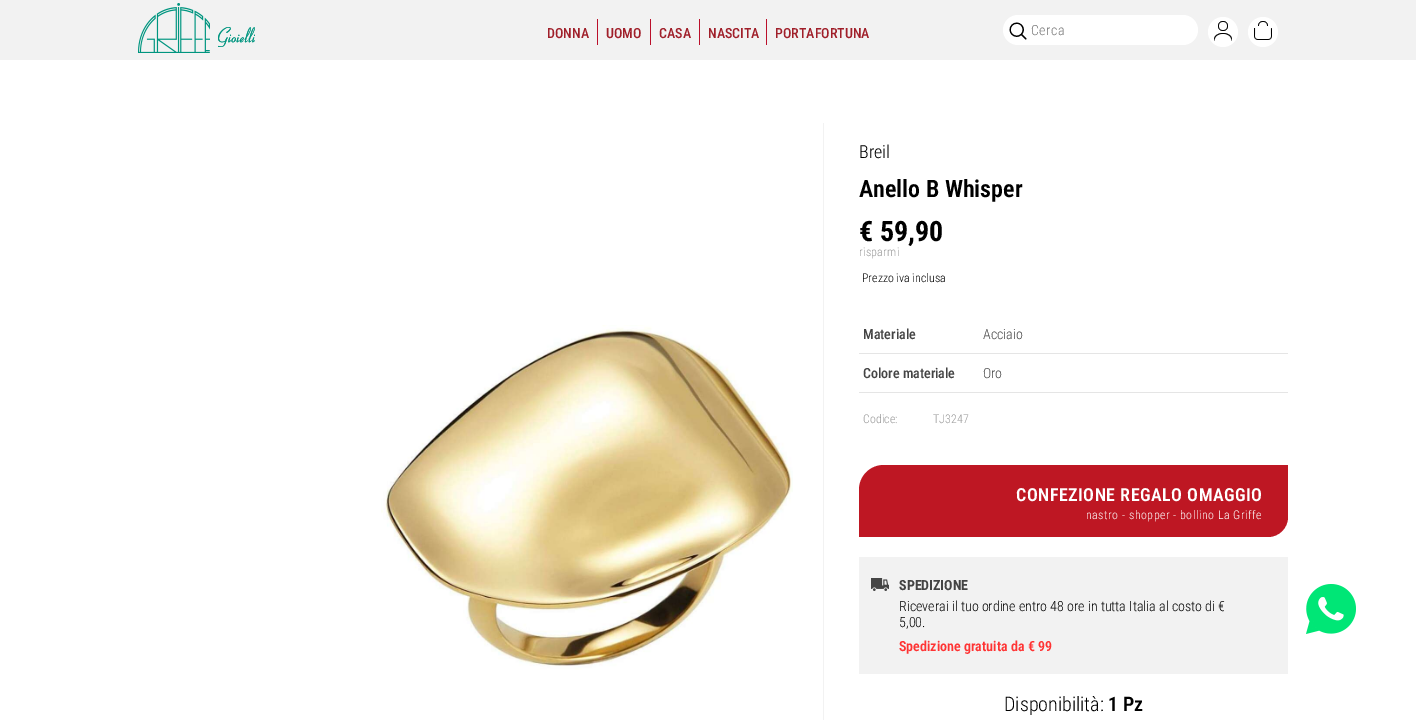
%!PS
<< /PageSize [1416 720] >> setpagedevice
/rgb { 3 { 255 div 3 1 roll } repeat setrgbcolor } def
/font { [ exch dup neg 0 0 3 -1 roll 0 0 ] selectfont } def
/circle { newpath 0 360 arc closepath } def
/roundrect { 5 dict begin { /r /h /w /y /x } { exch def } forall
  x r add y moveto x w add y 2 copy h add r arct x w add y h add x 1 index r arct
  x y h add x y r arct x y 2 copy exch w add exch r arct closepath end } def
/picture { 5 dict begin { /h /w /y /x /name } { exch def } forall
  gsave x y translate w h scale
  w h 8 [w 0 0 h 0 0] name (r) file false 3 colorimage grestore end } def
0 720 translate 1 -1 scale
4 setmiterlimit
255 255 255 rgb
0 0 1416 720 rectfill
242 242 242 rgb
0 0 1416 60 rectfill
(img/1.rgb) 138 3 117 50 picture
[
  [597 19 1 26 187 16 43]
  [650 19 1 26 187 16 43]
  [699 19 1 26 187 16 43]
  [766 19 1 26 187 16 43]
] { aload pop rgb rectfill } forall
255 255 255 rgb
1003 15 195 30 15 roundrect fill
(img/2.rgb) 1009 22 18 18 picture
1223 32 15 circle fill
(img/3.rgb) 1214 21 18 20 picture
1263 32 15 circle fill
(img/4.rgb) 1254 21 18 19 picture
(img/5.rgb) 381 325 412 345 picture
[
  [823 123 1 597 242 242 242]
  [859 353 429 1 229 229 229]
  [859 392 429 1 229 229 229]
] { aload pop rgb rectfill } forall
190 23 35 rgb
884 465 moveto 1288 465 lineto 1288 517 lineto 1288 528 1279 537 1268 537 curveto 859 537 lineto 859 490 lineto 859 476 870 465 884 465 curveto closepath fill
242 242 242 rgb
859 557 429 117 rectfill
(img/6.rgb) 871 578 18 13 picture
(img/7.rgb) 1306 584 50 50 picture
/RobotoCondensed-Medium 14 font
160 31 42 rgb
[
  [(DONNA) 547 38]
  [(UOMO) 606 38]
  [(CASA) 659 38]
  [(NASCITA) 708 38]
  [(PORTAFORTUNA) 775 38]
] { aload pop moveto show } forall
/RobotoCondensed-Light 14 font
117 117 117 rgb
1031 35 moveto 0.5 0 (Cerca) ashow
/RobotoCondensed-Light 18 font
0 0 0 rgb
859 158 moveto (Breil) show
/RobotoCondensed-SemiBold 24 font
859 197 moveto (Anello B Whisper) show
/RobotoCondensed-Bold 28 font
859 241 moveto (€ 59,90) show
/RobotoCondensed-Light 12 font
153 153 153 rgb
859 256 moveto 0.25 0 (risparmi) ashow
0 0 0 rgb
862 282 moveto (Prezzo iva inclusa) show
/RobotoCondensed-Medium 14 font
68 68 68 rgb
863 339 moveto (Materiale) show
/RobotoCondensed-Light 14 font
983 339 moveto (Acciaio) show
/RobotoCondensed-Medium 14 font
863 378 moveto (Colore materiale) show
/RobotoCondensed-Light 14 font
983 378 moveto (Oro) show
/RobotoCondensed-Light 12 font
153 153 153 rgb
863 423 moveto (Codice:) show
933 423 moveto (TJ3247) show
/RobotoCondensed-SemiBold 18 font
255 255 255 rgb
1016 501 moveto 0.5 0 (CONFEZIONE REGALO OMAGGIO) ashow
/RobotoCondensed-Light 12 font
1086 519 moveto 0.5 0 (nastro - shopper - bollino La Griffe) ashow
/RobotoCondensed-Bold 14 font
68 68 68 rgb
899 590 moveto (SPEDIZIONE) show
/RobotoCondensed-Light 14 font
0 0 0 rgb
899 611 moveto (Riceverai il tuo ordine entro 48 ore in tutta Italia al costo di €) show
899 627 moveto (5,00.) show
/RobotoCondensed-SemiBold 14 font
255 51 51 rgb
899 651 moveto (Spedizione gratuita da € 99) show
/RobotoCondensed-Light 20 font
0 0 0 rgb
1004 711 moveto (Disponibilità:) show
/RobotoCondensed-SemiBold 20 font
1108 711 moveto (1 Pz) show
showpage
